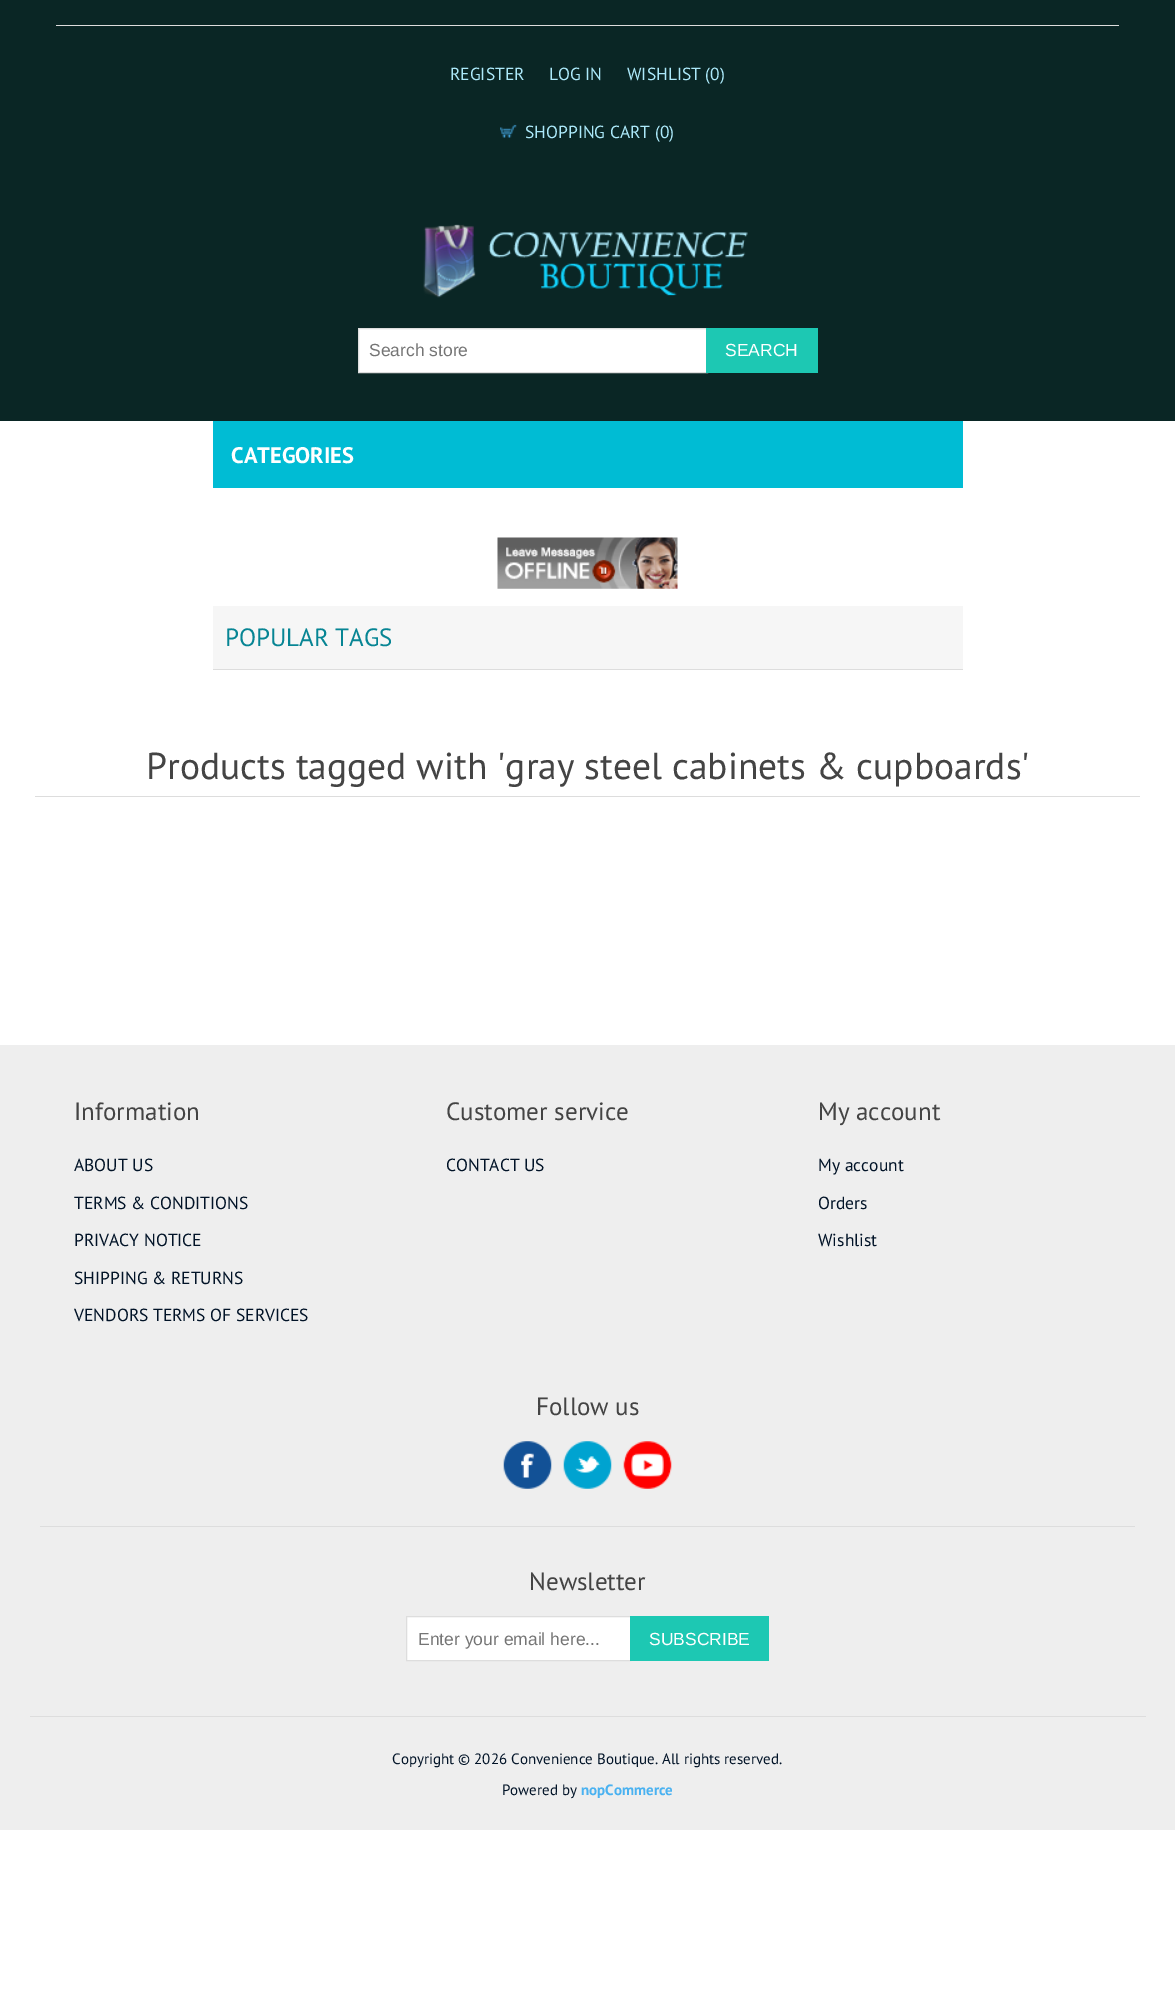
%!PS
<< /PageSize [1175 2006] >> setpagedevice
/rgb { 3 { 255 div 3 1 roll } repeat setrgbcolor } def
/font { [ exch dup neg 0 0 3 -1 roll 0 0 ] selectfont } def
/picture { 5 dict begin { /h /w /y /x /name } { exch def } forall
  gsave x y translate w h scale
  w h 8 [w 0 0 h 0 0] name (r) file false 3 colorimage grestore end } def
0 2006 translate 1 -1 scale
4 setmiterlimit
255 255 255 rgb
0 0 1175 2006 rectfill
10 38 37 rgb
0 0 1175 421 rectfill
221 221 221 rgb
56 25 1063 1 rectfill
(img/1.rgb) 500 124 17 14 picture
(img/2.rgb) 423 224 325 74 picture
255 255 255 rgb
359 329 347 43 rectfill
221 221 221 rgb
358.5 328.5 349 44 rectstroke
29 200 179 rgb
706 328 112 45 rectfill
0 188 212 rgb
213 421 750 67 rectfill
(img/3.rgb) 497 537 181 52 picture
[
  [213 606 750 63 246 246 246]
  [213 669 750 1 221 221 221]
  [35 796 1105 1 221 221 221]
  [0 1045 1175 785 238 238 238]
  [30 1716 1116 1 221 221 221]
  [40 1526 1095 1 221 221 221]
] { aload pop rgb rectfill } forall
(img/4.rgb) 503 1441 49 48 picture
(img/5.rgb) 563 1441 49 48 picture
(img/6.rgb) 623 1441 49 48 picture
255 255 255 rgb
406.5 1616.5 moveto 630.5 1616.5 lineto 630.5 1660.5 lineto 406.5 1660.5 lineto closepath gsave fill grestore
221 221 221 rgb
stroke
29 200 179 rgb
630 1616 139 45 rectfill
/PTSans-Regular 17.5 font
172 233 250 rgb
[
  [(REGISTER) 450 80]
  [(LOG IN) 549 80]
  [(WISHLIST \(0\)) 627 80]
  [(SHOPPING CART \(0\)) 525 138]
] { aload pop moveto show } forall
/LiberationSans-Regular 17.5 font
117 117 117 rgb
369 356 moveto (Search store) show
255 255 255 rgb
725 356 moveto (SEARCH) show
/PTSans-Bold 22.5 font
231 463 moveto (CATEGORIES) show
/PTSans-Regular 25 font
7 133 148 rgb
225 646 moveto (POPULAR TAGS) show
/PTSans-Regular 37.5 font
68 68 68 rgb
146 779 moveto (Products tagged with 'gray steel cabinets & cupboards') show
/PTSans-Regular 25 font
74 1120 moveto (Information) show
/PTSans-Regular 17.5 font
1 19 39 rgb
[
  [(ABOUT US) 74 1171]
  [(TERMS & CONDITIONS) 74 1209]
  [(PRIVACY NOTICE) 74 1246]
  [(SHIPPING & RETURNS) 74 1284]
  [(VENDORS TERMS OF SERVICES) 74 1321]
] { aload pop moveto show } forall
/PTSans-Regular 25 font
68 68 68 rgb
446 1120 moveto (Customer service) show
/PTSans-Regular 17.5 font
1 19 39 rgb
446 1171 moveto (CONTACT US) show
/PTSans-Regular 25 font
68 68 68 rgb
818 1120 moveto (My account) show
/PTSans-Regular 17.5 font
1 19 39 rgb
[
  [(My account) 818 1171]
  [(Orders) 818 1209]
  [(Wishlist) 818 1246]
] { aload pop moveto show } forall
/PTSans-Regular 25 font
68 68 68 rgb
536 1415 moveto (Follow us) show
529 1590 moveto (Newsletter) show
/LiberationSans-Regular 17.5 font
117 117 117 rgb
418 1645 moveto (Enter your email here...) show
255 255 255 rgb
649 1645 moveto (SUBSCRIBE) show
/PTSans-Regular 15 font
1 19 39 rgb
392 1764 moveto (Copyright © 2026 Convenience Boutique. All rights reserved.) show
502 1795 moveto (Powered by) show
/PTSans-Bold 15 font
74 178 241 rgb
581 1795 moveto (nopCommerce) show
showpage
